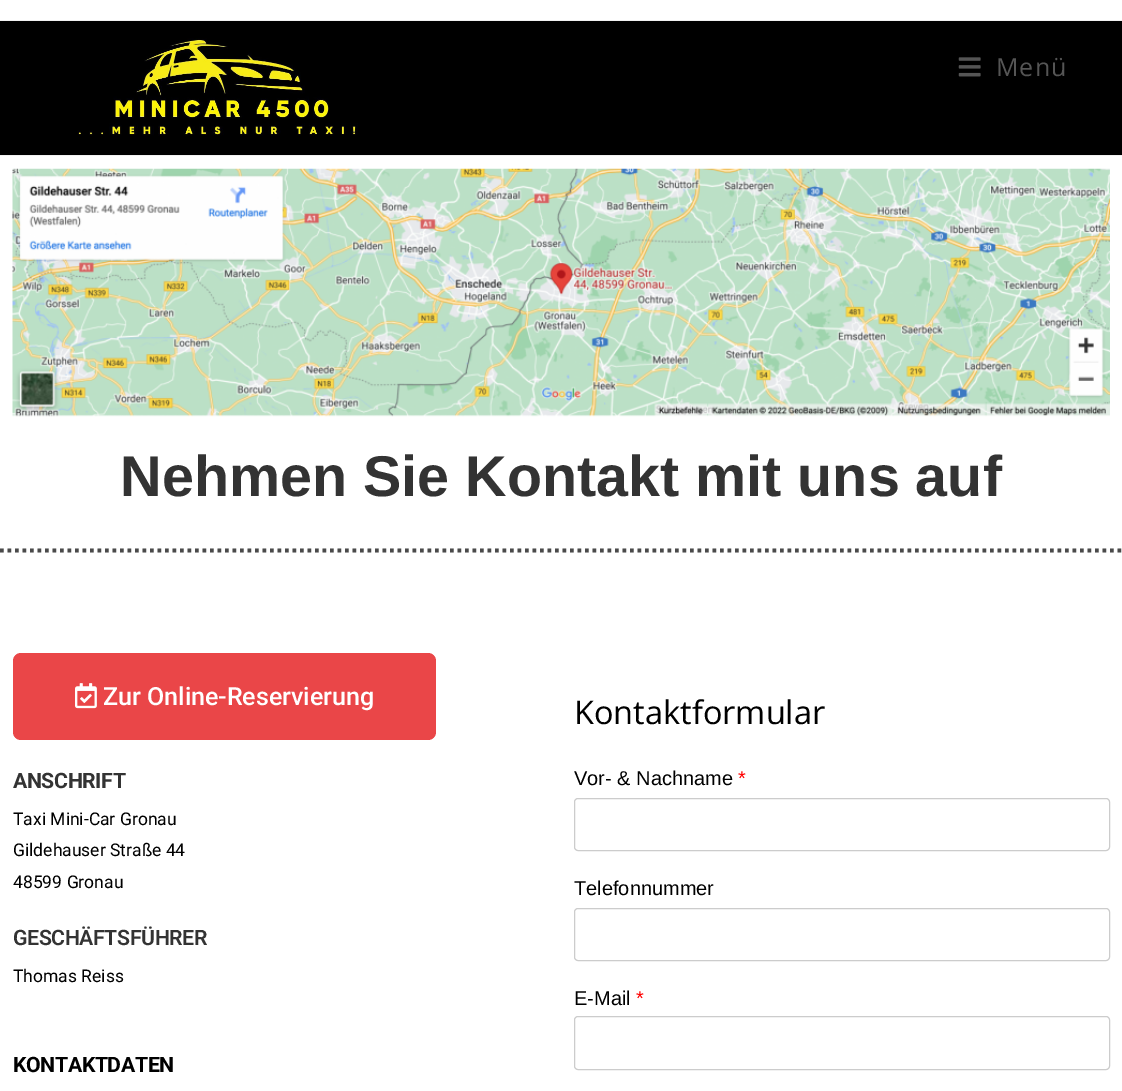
%!PS
<< /PageSize [1122 1091] >> setpagedevice
/rgb { 3 { 255 div 3 1 roll } repeat setrgbcolor } def
/font { [ exch dup neg 0 0 3 -1 roll 0 0 ] selectfont } def
/roundrect { 5 dict begin { /r /h /w /y /x } { exch def } forall
  x r add y moveto x w add y 2 copy h add r arct x w add y h add x 1 index r arct
  x y h add x y r arct x y 2 copy exch w add exch r arct closepath end } def
/picture { 5 dict begin { /h /w /y /x /name } { exch def } forall
  gsave x y translate w h scale
  w h 8 [w 0 0 h 0 0] name (r) file false 3 colorimage grestore end } def
0 1091 translate 1 -1 scale
4 setmiterlimit
255 255 255 rgb
0 0 1122 1091 rectfill
[
  [0 20 1122 1 241 241 241]
  [0 21 1122 134 0 0 0]
  [0 155 1122 1 241 241 241]
] { aload pop rgb rectfill } forall
(img/1.rgb) 77 38 281 98 picture
(img/2.rgb) 958 57 23 20 picture
(img/3.rgb) 12 168 1098 249 picture
74 74 74 rgb
3.8 setlinewidth
[3.75 3.75] 0 setdash
0 550.5 moveto 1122.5 550.5 lineto stroke
234 70 72 rgb
13 653 423 87 8 roundrect fill
(img/4.rgb) 75 683 22 26 picture
204 204 204 rgb
1 setlinewidth
[] 0 setdash
574.5 798.5 535 52 3.5 roundrect stroke
574.5 908.5 535 52 3.5 roundrect stroke
574.5 1016.5 535 53 3.5 roundrect stroke
/OpenSans-Regular 25 font
85 85 85 rgb
996 76 moveto 1 0 (Menü) ashow
/LiberationSans-Bold 57.5 font
51 51 51 rgb
120 496 moveto (Nehmen Sie Kontakt mit uns auf) show
/Roboto-Medium 25 font
255 255 255 rgb
103 705 moveto (Zur Online-Reservierung) show
/Roboto-Bold 21.25 font
51 51 51 rgb
13 788 moveto -0.4 0 (ANSCHRIFT) ashow
/Roboto-Regular 17.5 font
0 0 0 rgb
[
  [(Taxi Mini-Car Gronau) 13 825]
  [(Gildehauser Straße 44) 13 856]
  [(48599 Gronau) 13 888]
] { aload pop moveto show } forall
/Roboto-SemiBold 21.25 font
51 51 51 rgb
13 945 moveto -0.4 0 (GESCHÄFTSFÜHRER) ashow
/Roboto-Regular 17.5 font
0 0 0 rgb
13 982 moveto (Thomas Reiss) show
/Roboto-Bold 21.25 font
13 1072 moveto -0.4 0 (KONTAKTDATEN) ashow
/OpenSans-Regular 32.5 font
574 724 moveto (Kontaktformular) show
/LiberationSans-Regular 20 font
574 785 moveto (Vor- & Nachname) show
255 0 0 rgb
738 785 moveto (*) show
0 0 0 rgb
574 895 moveto (Telefonnummer) show
574 1005 moveto (E-Mail) show
255 0 0 rgb
636 1005 moveto (*) show
showpage
